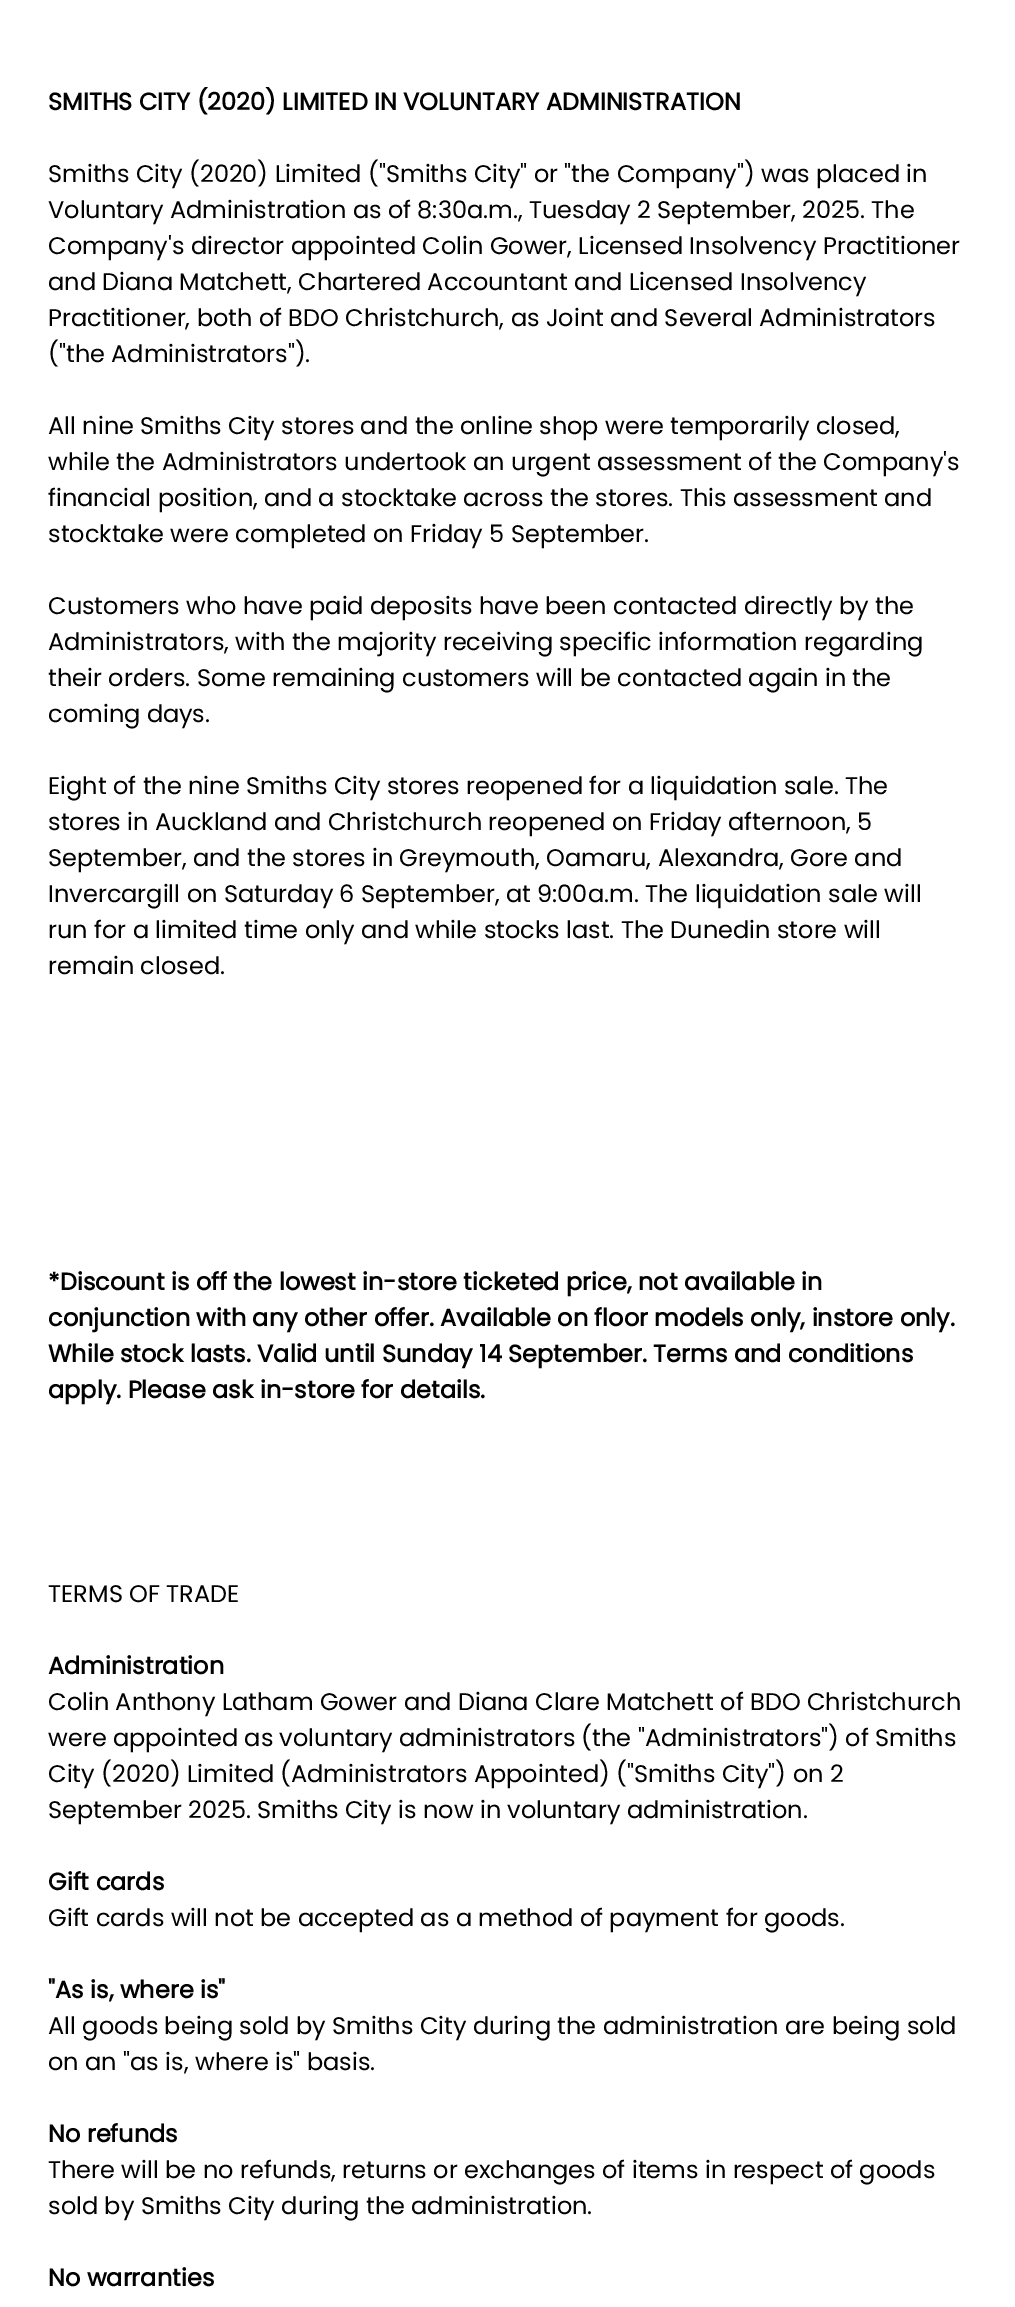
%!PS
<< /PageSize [1015 2307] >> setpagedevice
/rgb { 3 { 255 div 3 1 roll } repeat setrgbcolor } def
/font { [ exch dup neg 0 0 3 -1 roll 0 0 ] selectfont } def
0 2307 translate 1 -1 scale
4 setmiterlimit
255 255 255 rgb
0 0 1015 2307 rectfill
/Poppins-Bold 24 font
0 0 0 rgb
48 110 moveto (SMITHS CITY \(2020\) LIMITED IN VOLUNTARY ADMINISTRATION) show
/Poppins-Regular 24 font
[
  [(Smiths City \(2020\) Limited \("Smiths City" or "the Company"\) was placed in) 48 182]
  [(Voluntary Administration as of 8:30a.m., Tuesday 2 September, 2025. The) 48 218]
  [(Company's director appointed Colin Gower, Licensed Insolvency Practitioner) 48 254]
  [(and Diana Matchett, Chartered Accountant and Licensed Insolvency) 48 290]
  [(Practitioner, both of BDO Christchurch, as Joint and Several Administrators) 48 326]
  [(\("the Administrators"\).) 48 362]
  [(All nine Smiths City stores and the online shop were temporarily closed,) 48 434]
  [(while the Administrators undertook an urgent assessment of the Company's) 48 470]
  [(financial position, and a stocktake across the stores. This assessment and) 48 506]
  [(stocktake were completed on Friday 5 September.) 48 542]
  [(Customers who have paid deposits have been contacted directly by the) 48 614]
  [(Administrators, with the majority receiving specific information regarding) 48 650]
  [(their orders. Some remaining customers will be contacted again in the) 48 686]
  [(coming days.) 48 722]
  [(Eight of the nine Smiths City stores reopened for a liquidation sale. The) 48 794]
  [(stores in Auckland and Christchurch reopened on Friday afternoon, 5) 48 830]
  [(September, and the stores in Greymouth, Oamaru, Alexandra, Gore and) 48 866]
  [(Invercargill on Saturday 6 September, at 9:00a.m. The liquidation sale will) 48 902]
  [(run for a limited time only and while stocks last. The Dunedin store will) 48 938]
  [(remain closed.) 48 974]
] { aload pop moveto show } forall
/Poppins-Bold 24 font
[
  [(*Discount is off the lowest in-store ticketed price, not available in) 48 1290]
  [(conjunction with any other offer. Available on floor models only, instore only.) 48 1326]
  [(While stock lasts. Valid until Sunday 14 September. Terms and conditions) 48 1362]
  [(apply. Please ask in-store for details.) 48 1398]
] { aload pop moveto show } forall
/Poppins-Regular 24 font
48 1602 moveto (TERMS OF TRADE) show
/Poppins-Bold 24 font
48 1674 moveto (Administration) show
/Poppins-Regular 24 font
[
  [(Colin Anthony Latham Gower and Diana Clare Matchett of BDO Christchurch) 48 1710]
  [(were appointed as voluntary administrators \(the "Administrators"\) of Smiths) 48 1746]
  [(City \(2020\) Limited \(Administrators Appointed\) \("Smiths City"\) on 2) 48 1782]
  [(September 2025. Smiths City is now in voluntary administration.) 48 1818]
] { aload pop moveto show } forall
/Poppins-Bold 24 font
48 1890 moveto (Gift cards) show
/Poppins-Regular 24 font
48 1926 moveto (Gift cards will not be accepted as a method of payment for goods.) show
/Poppins-Bold 24 font
48 1998 moveto ("As is, where is") show
/Poppins-Regular 24 font
48 2034 moveto (All goods being sold by Smiths City during the administration are being sold) show
48 2070 moveto (on an "as is, where is" basis.) show
/Poppins-Bold 24 font
48 2142 moveto (No refunds) show
/Poppins-Regular 24 font
48 2178 moveto (There will be no refunds, returns or exchanges of items in respect of goods) show
48 2214 moveto (sold by Smiths City during the administration.) show
/Poppins-Bold 24 font
48 2286 moveto (No warranties) show
showpage
